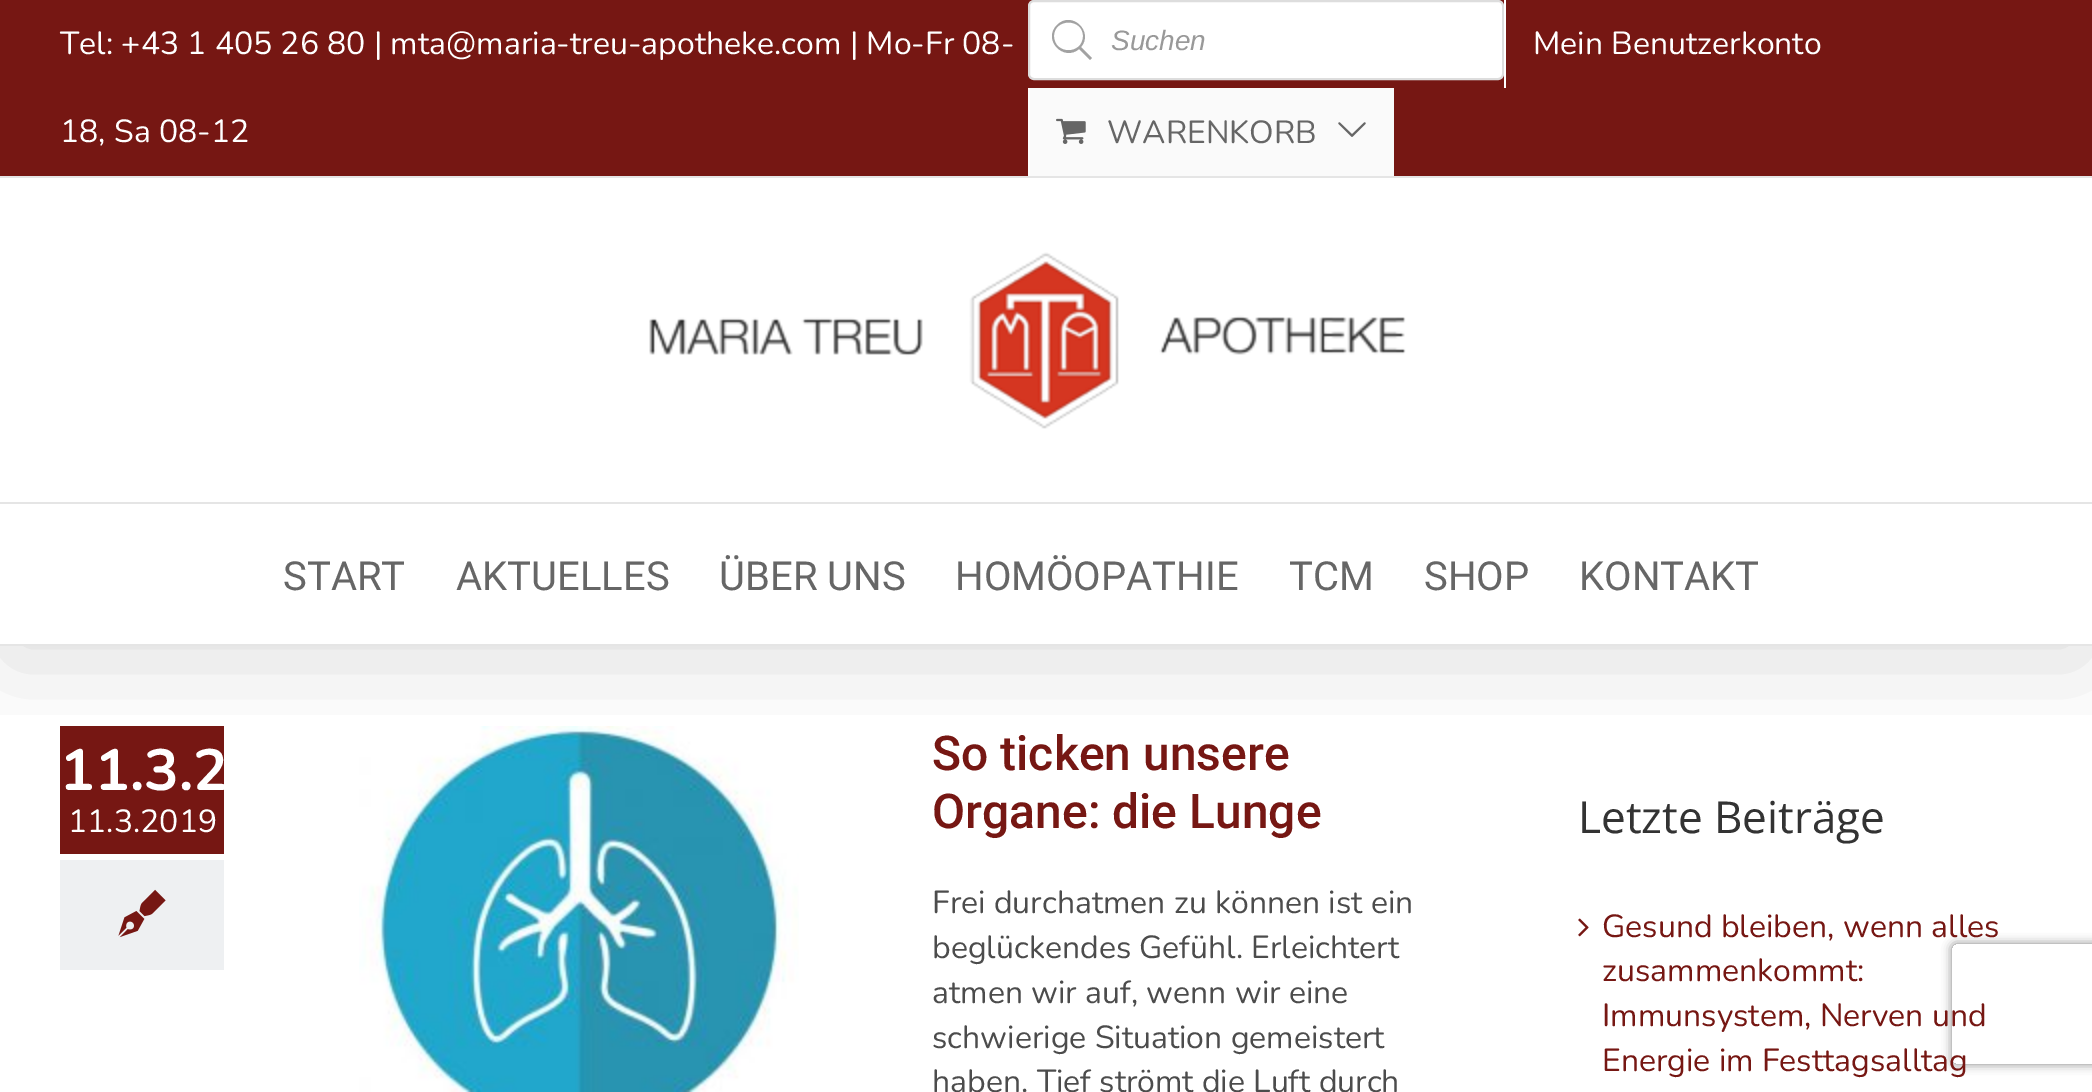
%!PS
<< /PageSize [2092 1092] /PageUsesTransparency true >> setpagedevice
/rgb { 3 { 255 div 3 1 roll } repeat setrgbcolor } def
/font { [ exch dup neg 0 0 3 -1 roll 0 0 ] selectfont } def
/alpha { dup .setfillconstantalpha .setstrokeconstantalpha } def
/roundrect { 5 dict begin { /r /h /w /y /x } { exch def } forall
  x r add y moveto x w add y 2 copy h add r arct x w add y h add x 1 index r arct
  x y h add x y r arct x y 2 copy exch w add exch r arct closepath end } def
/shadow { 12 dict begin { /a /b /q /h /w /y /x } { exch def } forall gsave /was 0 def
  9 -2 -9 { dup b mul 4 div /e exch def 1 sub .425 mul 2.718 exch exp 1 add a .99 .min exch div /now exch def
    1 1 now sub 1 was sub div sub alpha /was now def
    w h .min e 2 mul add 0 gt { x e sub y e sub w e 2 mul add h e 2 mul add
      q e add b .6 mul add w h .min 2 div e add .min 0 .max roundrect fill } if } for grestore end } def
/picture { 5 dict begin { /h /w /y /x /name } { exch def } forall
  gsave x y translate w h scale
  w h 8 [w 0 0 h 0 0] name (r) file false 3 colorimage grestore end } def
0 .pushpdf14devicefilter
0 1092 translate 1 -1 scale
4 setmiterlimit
255 255 255 rgb
0 0 2092 1092 rectfill
118 23 19 rgb
60 726 164 128 rectfill
(img/5.rgb) 359 726 440 366 picture
gsave
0 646 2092 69 rectclip
0 0 0 rgb
4 24 2084 638 0 50 0.14 shadow
grestore
0 0 2092 176 rectfill
229 229 229 rgb
0 176 2092 2 rectfill
255 255 255 rgb
1029 1 474 78 5 roundrect gsave fill grestore
221 221 221 rgb
2 setlinewidth
stroke
162 162 162 rgb
1092 58 moveto 1081 47 lineto 1094 32 1072 10 1057 25 curveto 1042 40 1064 62 1079 49 curveto 1090 60 lineto closepath 1054 36 moveto 1054 18 1083 18 1083 36 curveto 1083 55 1054 55 1054 36 curveto closepath fill
[
  [1504 0 2 88 255 255 255]
  [1028 88 2 88 255 255 255]
  [1030 88 364 88 250 250 250]
] { aload pop rgb rectfill } forall
(img/1.rgb) 1056 118 30 26 picture
(img/2.rgb) 1338 122 28 15 picture
229 229 229 rgb
0 502 2092 2 rectfill
(img/3.rgb) 649 252 757 177 picture
0 644 2092 2 rectfill
238 240 242 rgb
60 860 164 110 rectfill
(img/4.rgb) 118 889 48 49 picture
(img/6.rgb) 1578 918 11 19 picture
gsave
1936 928 moveto 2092 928 lineto 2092 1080 lineto 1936 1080 lineto closepath 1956 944 moveto 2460 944 lineto 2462 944 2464 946 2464 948 curveto 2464 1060 lineto 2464 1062 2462 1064 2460 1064 curveto 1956 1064 lineto 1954 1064 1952 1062 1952 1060 curveto 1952 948 lineto 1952 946 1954 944 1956 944 curveto closepath eoclip newpath
128 128 128 rgb
1952 944 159 120 4 5 1 shadow
grestore
/Nunito-Regular 32 font
255 255 255 rgb
60 54 moveto (Tel: +43 1 405 26 80 | mta@maria-treu-apotheke.com | Mo-Fr 08-) show
60 142 moveto (18, Sa 08-12) show
/LiberationSans-Italic 28 font
153 153 153 rgb
1111 50 moveto (Suchen) show
/Nunito-Regular 32 font
255 255 255 rgb
1533 54 moveto (Mein Benutzerkonto) show
102 102 102 rgb
1107 143 moveto (WARENKORB) show
/Roboto-Regular 40 font
[
  [(START) 283 590]
  [(AKTUELLES) 456 590]
  [(ÜBER UNS) 719 590]
  [(HOMÖOPATHIE) 955 590]
  [(TCM) 1289 590]
  [(SHOP) 1424 590]
  [(KONTAKT) 1579 590]
] { aload pop moveto show } forall
/Nunito-Bold 58 font
255 255 255 rgb
60 790 moveto (11.3.2) show
/Nunito-Regular 32 font
68 832 moveto (11.3.2019) show
/Roboto-Medium 48 font
118 23 19 rgb
932 770 moveto (So ticken unsere) show
932 828 moveto (Organe: die Lunge) show
/Nunito-Regular 32 font
76 76 76 rgb
[
  [(Frei durchatmen zu können ist ein) 932 913]
  [(beglückendes Gefühl. Erleichtert) 932 958]
  [(atmen wir auf, wenn wir eine) 932 1003]
  [(schwierige Situation gemeistert) 932 1048]
  [(haben. Tief strömt die Luft durch) 932 1092]
] { aload pop moveto show } forall
/OpenSans-Regular 44 font
51 51 51 rgb
1578 833 moveto (Letzte Beiträge) show
/Nunito-Regular 32 font
118 23 19 rgb
[
  [(Gesund bleiben, wenn alles) 1602 937]
  [(zusammenkommt:) 1602 981]
  [(Immunsystem, Nerven und) 1602 1026]
  [(Energie im Festtagsalltag) 1602 1071]
] { aload pop moveto show } forall
.poppdf14devicefilter showpage
